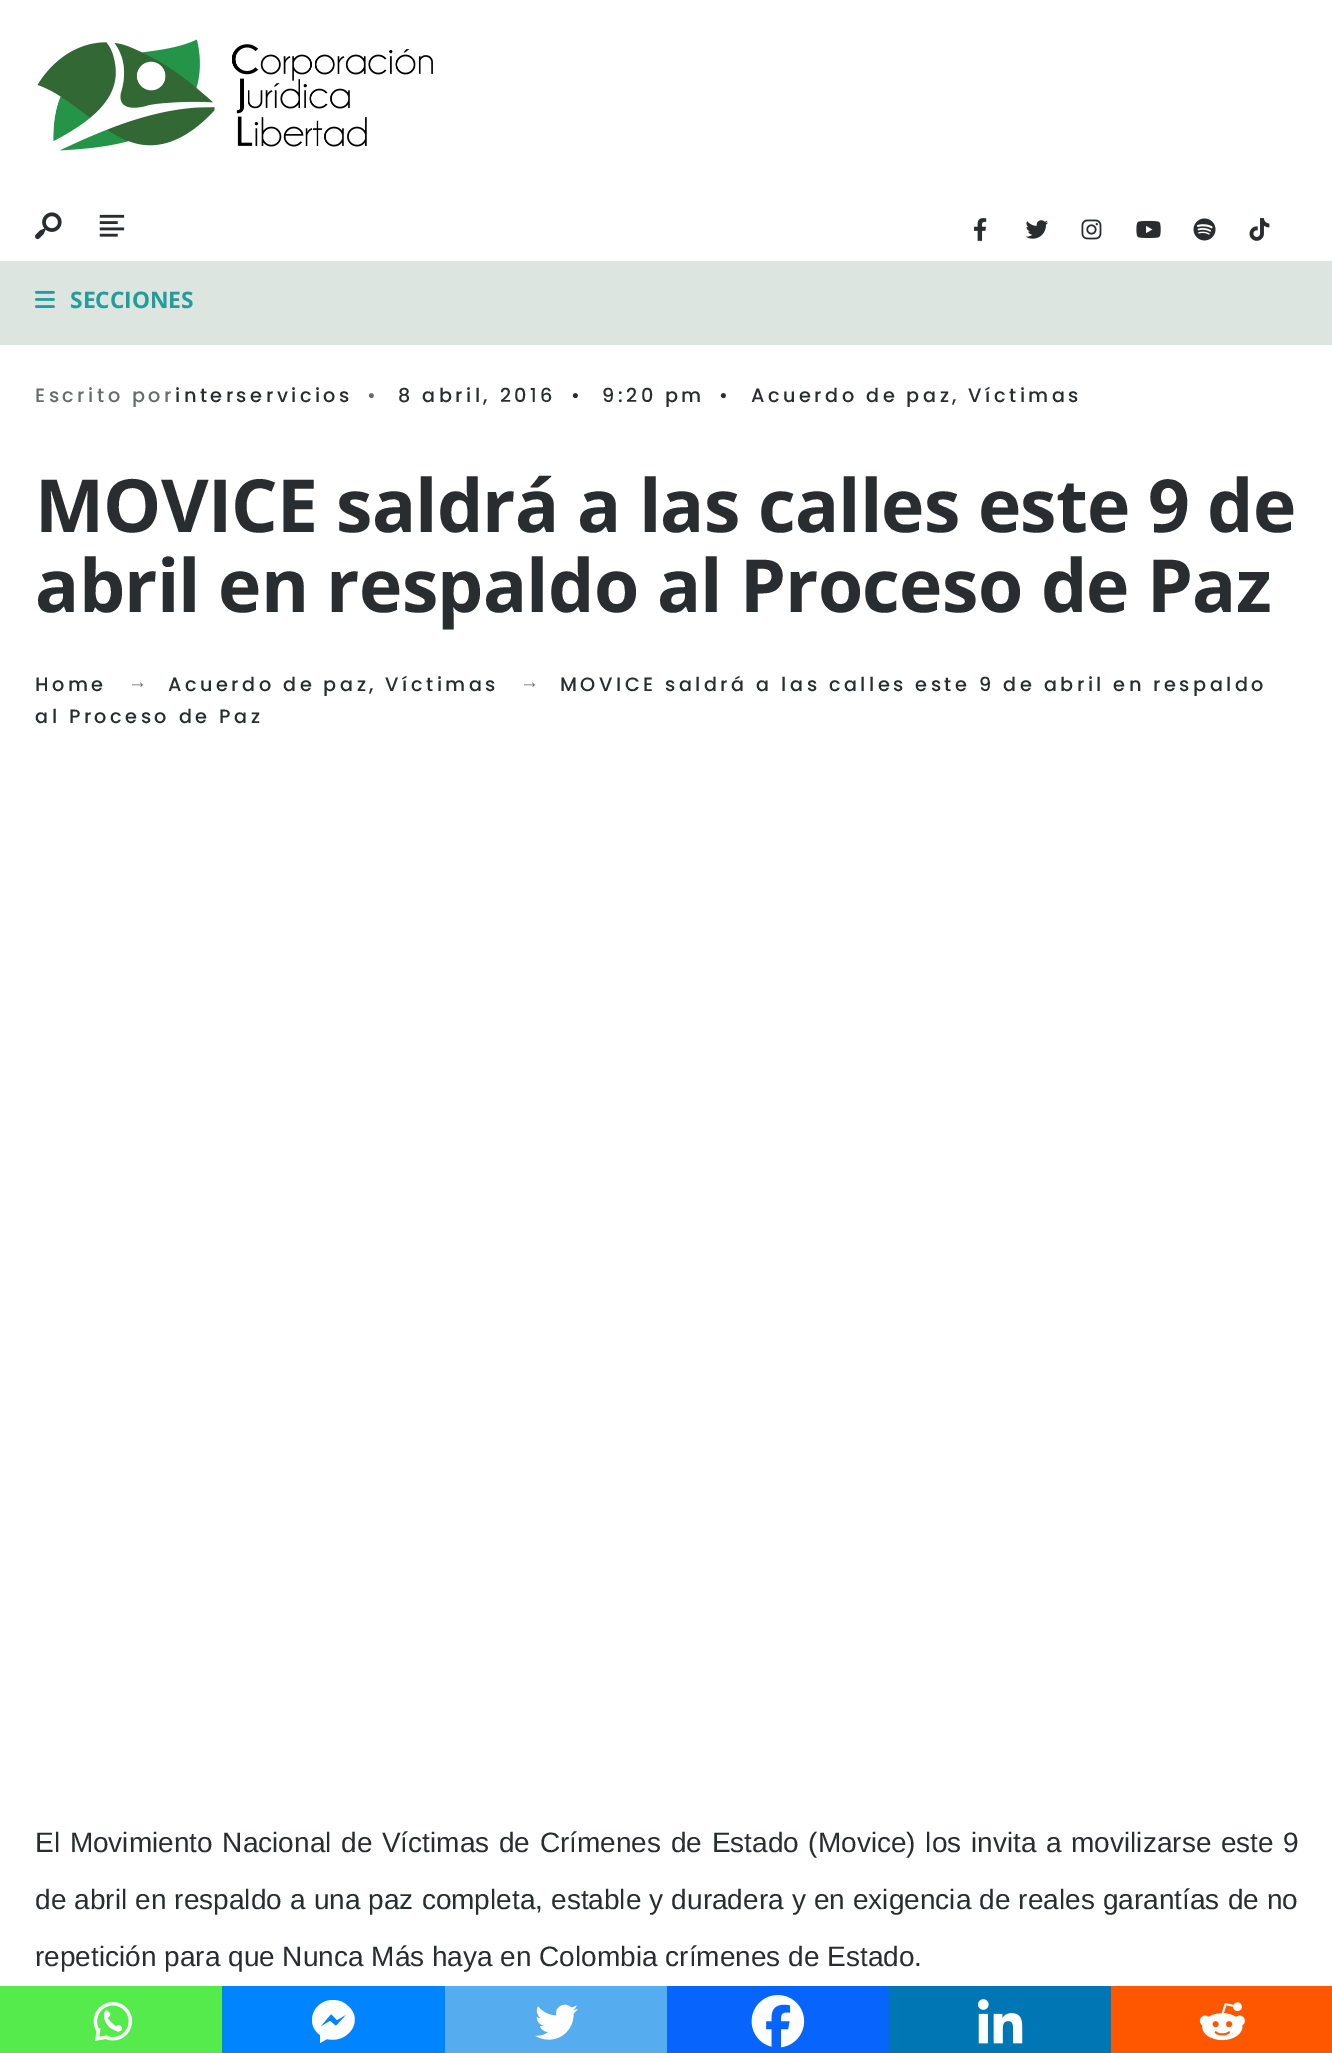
%!PS
<< /PageSize [1332 2053] >> setpagedevice
/rgb { 3 { 255 div 3 1 roll } repeat setrgbcolor } def
/font { [ exch dup neg 0 0 3 -1 roll 0 0 ] selectfont } def
/picture { 5 dict begin { /h /w /y /x /name } { exch def } forall
  gsave x y translate w h scale
  w h 8 [w 0 0 h 0 0] name (r) file false 3 colorimage grestore end } def
0 2053 translate 1 -1 scale
4 setmiterlimit
255 255 255 rgb
0 0 1332 2053 rectfill
(img/1.rgb) 37 39 396 112 picture
(img/2.rgb) 35 212 27 28 picture
(img/3.rgb) 99 214 26 23 picture
(img/4.rgb) 974 218 13 23 picture
(img/5.rgb) 1025 220 24 19 picture
(img/6.rgb) 1081 219 21 21 picture
(img/7.rgb) 1136 220 25 18 picture
(img/8.rgb) 1193 218 23 23 picture
(img/9.rgb) 1249 218 21 23 picture
220 229 223 rgb
0 261 1332 84 rectfill
(img/10.rgb) 35 290 20 18 picture
85 235 76 rgb
0 1986 222 67 rectfill
(img/11.rgb) 93 2002 40 39 picture
0 132 255 rgb
222 1986 223 67 rectfill
255 255 255 rgb
333 2000 moveto 314 2000 304 2023 320 2035 curveto 320 2043 lineto 327 2039 lineto 347 2044 365 2021 348 2006 curveto 344 2002 339 2000 333 2000 curveto closepath 336 2026 moveto 330 2021 lineto 320 2027 lineto 331 2014 lineto 337 2020 lineto 347 2014 lineto closepath fill
85 172 238 rgb
445 1986 222 67 rectfill
(img/12.rgb) 535 2004 43 36 picture
7 101 254 rgb
667 1986 222 67 rectfill
(img/13.rgb) 751 1995 54 53 picture
0 119 181 rgb
889 1986 222 67 rectfill
(img/14.rgb) 978 1999 45 45 picture
255 87 0 rgb
1111 1986 221 67 rectfill
(img/15.rgb) 1199 2002 46 39 picture
/OpenSans-Bold 22.75 font
35 157 155 rgb
70 308 moveto (SECCIONES) show
/Poppins-Medium 19.25 font
105 108 109 rgb
35 402 moveto 3.5 0 (Escrito por) ashow
41 45 47 rgb
175 402 moveto 3.5 0 (interservicios) ashow
105 108 109 rgb
367 402 moveto 3.5 0 (•) ashow
41 45 47 rgb
398 402 moveto 3.5 0 (8 abril, 2016) ashow
571 402 moveto 3.5 0 (•) ashow
602 402 moveto 3.5 0 (9:20 pm) ashow
719 402 moveto 3.5 0 (•) ashow
751 402 moveto 3.5 0 (Acuerdo de paz, Víctimas) ashow
/OpenSans-Bold 73.3 font
35 532 moveto -0.75 0 (MOVICE saldrá a las calles este 9 de) ashow
35 612 moveto -0.75 0 (abril en respaldo al Proceso de Paz) ashow
/Poppins-Medium 19.25 font
35 691 moveto 3.5 0 (Home) ashow
/LiberationSerif-Regular 19.25 font
105 108 109 rgb
128 688 moveto 3.5 0 (→) ashow
/Poppins-Medium 19.25 font
41 45 47 rgb
168 691 moveto 3.5 0 (Acuerdo de paz, Víctimas) ashow
/LiberationSerif-Regular 19.25 font
105 108 109 rgb
520 688 moveto 3.5 0 (→) ashow
/Poppins-Medium 19.25 font
41 45 47 rgb
560 691 moveto 3.5 0 (MOVICE saldrá a las calles este 9 de abril en respaldo) ashow
35 723 moveto 3.5 0 (al Proceso de Paz) ashow
/LiberationSans-Regular 28 font
35 1852 moveto 1.9 0 32 (El Movimiento Nacional de Víctimas de Crímenes de Estado \(Movice\) los invita a movilizarse este 9) widthshow
35 1909 moveto 0.3 0 32 (de abril en respaldo a una paz completa, estable y duradera y en exigencia de reales garantías de no) widthshow
35 1966 moveto (repetición para que Nunca Más haya en Colombia crímenes de Estado.) show
showpage
